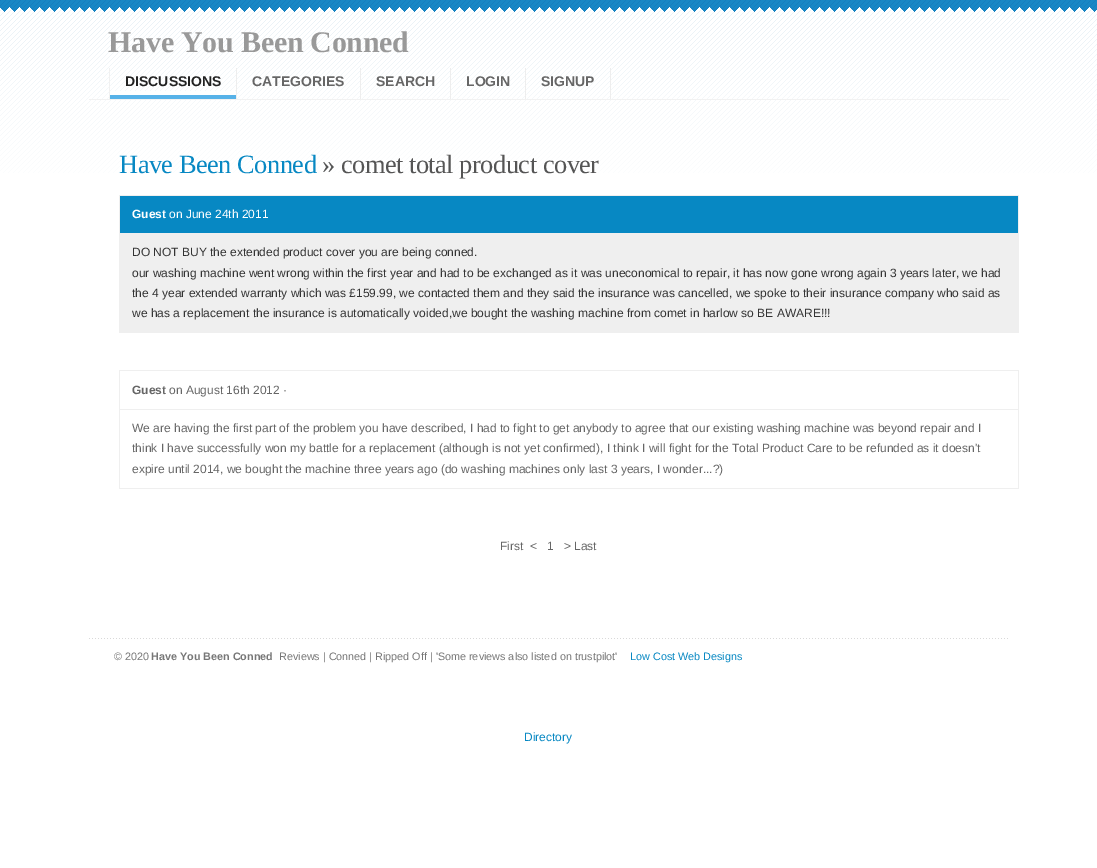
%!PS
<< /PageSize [1097 868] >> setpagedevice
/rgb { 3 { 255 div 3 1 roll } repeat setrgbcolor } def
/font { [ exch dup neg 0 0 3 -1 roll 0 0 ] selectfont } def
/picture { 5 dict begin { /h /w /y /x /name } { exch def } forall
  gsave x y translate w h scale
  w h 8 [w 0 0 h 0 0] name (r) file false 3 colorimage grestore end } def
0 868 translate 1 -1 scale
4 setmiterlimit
255 255 255 rgb
0 0 1097 868 rectfill
(img/1.rgb) 0 0 1097 173 picture
242 242 242 rgb
89 99 920 1 rectfill
(img/2.rgb) 110 91 126 8 picture
[
  [236 68 1 31 238 238 238]
  [109 68 1 31 241 241 241]
  [360 68 1 31 238 238 238]
  [450 68 1 31 238 238 238]
  [525 68 1 31 238 238 238]
  [610 68 1 31 238 238 238]
  [120 196 898 37 7 136 195]
  [119 195 900 1 239 239 239]
  [119 233 900 1 239 239 239]
  [1018 233 1 100 239 239 239]
  [1018 195 1 39 239 239 239]
  [119 195 1 39 239 239 239]
  [119 234 899 99 239 239 239]
  [119 370 900 1 239 239 239]
  [119 409 900 1 239 239 239]
  [1018 409 1 80 239 239 239]
  [1018 370 1 40 239 239 239]
  [119 488 900 1 239 239 239]
  [119 409 1 80 239 239 239]
  [119 370 1 40 239 239 239]
] { aload pop rgb rectfill } forall
(img/3.rgb) 89 638 919 1 picture
/LiberationSerif-Bold 30 font
153 153 153 rgb
108 52 moveto -0.25 0 (Have You Been Conned) ashow
/LiberationSans-Bold 14 font
34 34 34 rgb
125 86 moveto (DISCUSSIONS) show
102 102 102 rgb
[
  [(CATEGORIES) 252 86]
  [(SEARCH) 376 86]
  [(LOGIN) 466 86]
  [(SIGNUP) 541 86]
] { aload pop moveto show } forall
/LiberationSerif-Regular 26.4 font
7 136 195 rgb
119 173 moveto -0.5 0 (Have Been Conned) ashow
85 85 85 rgb
322 173 moveto -0.5 0 (» comet total product cover) ashow
/LiberationSans-Bold 12 font
255 255 255 rgb
132 218 moveto (Guest) show
/LiberationSans-Regular 12 font
169 218 moveto (on June 24th 2011) show
51 51 51 rgb
[
  [(DO NOT BUY the extended product cover you are being conned.) 132 256]
  [(our washing machine went wrong within the first year and had to be exchanged as it was uneconomical to repair, it has now gone wrong again 3 years later, we had) 132 277]
  [(the 4 year extended warranty which was £159.99, we contacted them and they said the insurance was cancelled, we spoke to their insurance company who said as) 132 297]
  [(we has a replacement the insurance is automatically voided,we bought the washing machine from comet in harlow so BE AWARE!!!) 132 317]
] { aload pop moveto show } forall
/LiberationSans-Bold 12 font
102 102 102 rgb
132 394 moveto (Guest) show
/LiberationSans-Regular 12 font
[
  [(on August 16th 2012 ·) 169 394]
  [(We are having the first part of the problem you have described, I had to fight to get anybody to agree that our existing washing machine was beyond repair and I) 132 432]
  [(think I have successfully won my battle for a replacement \(although is not yet confirmed\), I think I will fight for the Total Product Care to be refunded as it doesn't) 132 452]
  [(expire until 2014, we bought the machine three years ago \(do washing machines only last 3 years, I wonder...?\)) 132 473]
  [(First  <   1   > Last) 500 550]
] { aload pop moveto show } forall
/LiberationSans-Regular 10.8 font
119 119 119 rgb
114 660 moveto (© 2020) show
/LiberationSans-Bold 10.8 font
151 660 moveto (Have You Been Conned) show
/LiberationSans-Regular 10.8 font
279 660 moveto (Reviews | Conned | Ripped Off | 'Some reviews also listed on trustpilot') show
7 136 195 rgb
630 660 moveto (Low Cost Web Designs) show
/LiberationSans-Regular 12 font
524 741 moveto (Directory) show
showpage
